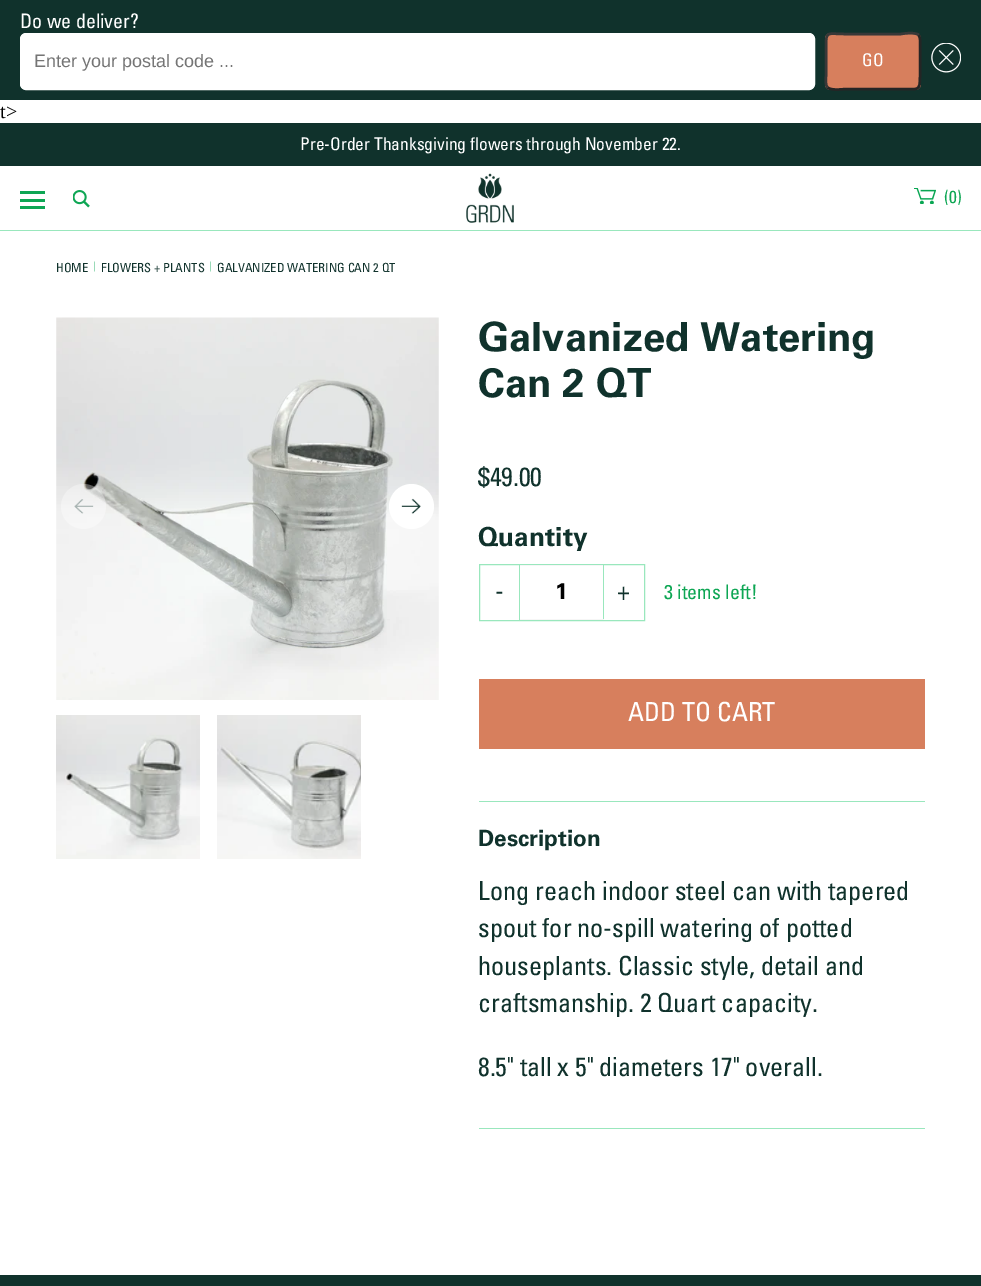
%!PS
<< /PageSize [981 1286] /PageUsesTransparency true >> setpagedevice
/rgb { 3 { 255 div 3 1 roll } repeat setrgbcolor } def
/font { [ exch dup neg 0 0 3 -1 roll 0 0 ] selectfont } def
/alpha { dup .setfillconstantalpha .setstrokeconstantalpha } def
/circle { newpath 0 360 arc closepath } def
/roundrect { 5 dict begin { /r /h /w /y /x } { exch def } forall
  x r add y moveto x w add y 2 copy h add r arct x w add y h add x 1 index r arct
  x y h add x y r arct x y 2 copy exch w add exch r arct closepath end } def
/picture { 5 dict begin { /h /w /y /x /name } { exch def } forall
  gsave x y translate w h scale
  w h 8 [w 0 0 h 0 0] name (r) file false 3 colorimage grestore end } def
0 .pushpdf14devicefilter
0 1286 translate 1 -1 scale
4 setmiterlimit
255 255 255 rgb
0 0 981 1286 rectfill
16 50 44 rgb
0 0 981 100 rectfill
255 255 255 rgb
20.5 33.5 794 56 5.5 roundrect gsave fill grestore
stroke
215 127 93 rgb
825 33 96 57 6 roundrect fill
37 37 37 rgb
2.5 setlinewidth
918.5 35 moveto 921 38 920 43.5 920 46 curveto 920 76 lineto 920 92 918.5 89 901 89 curveto 845 89 lineto 845 89 831.5 91 827.5 87.5 curveto stroke
56 56 56 rgb
827.5 87.5 moveto 825 84.5 826 79 826 76 curveto 826 46 lineto 826 30.5 827.5 34 845 34 curveto 901 34 lineto 901 34 915 31.5 918.5 35 curveto stroke
(img/1.rgb) 931 43 30 30 picture
[
  [0 230 981 1 153 231 189]
  [0 123 981 43 16 50 44]
  [20 191 25 3 14 166 84]
  [20 199 25 3 14 166 84]
  [20 206 25 3 14 166 84]
] { aload pop rgb rectfill } forall
(img/2.rgb) 73 190 17 18 picture
(img/3.rgb) 466 173 48 50 picture
(img/4.rgb) 914 188 22 16 picture
(img/5.rgb) 56 317 383 383 picture
0.35 alpha
255 255 255 rgb
83.5 506.5 22.5 circle fill
1 alpha
(img/6.rgb) 74 499 20 15 picture
411.5 506.5 22.5 circle fill
(img/7.rgb) 401 498 20 16 picture
(img/8.rgb) 56 715 144 144 picture
(img/9.rgb) 217 715 144 144 picture
153 231 189 rgb
1 setlinewidth
479.5 564.5 165 56 rectstroke
[
  [519 565 85 1 246 246 246]
  [603 565 1 55 153 231 189]
  [519 619 85 1 246 246 246]
  [519 565 1 55 153 231 189]
  [479 679 446 70 215 127 93]
  [479 1128 446 1 153 231 189]
  [479 801 446 1 153 231 189]
  [0 1275 981 11 16 50 44]
] { aload pop rgb rectfill } forall
/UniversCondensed-Regular 20 font
255 255 255 rgb
20 28 moveto (Do we deliver?) show
/LiberationSans-Regular 18 font
117 117 117 rgb
34 67 moveto (Enter your postal code ...) show
/UniversCondensed-Regular 17.5 font
255 255 255 rgb
862 66 moveto (GO) show
/LiberationSerif-Regular 20 font
0 0 0 rgb
0 118 moveto (t>) show
/UniversCondensed-Regular 17.5 font
255 255 255 rgb
300 150 moveto (Pre-Order Thanksgiving flowers through November 22.) show
14 166 84 rgb
944 203 moveto (\(0\)) show
/UniversCondensed-Regular 12.5 font
16 50 44 rgb
56 272 moveto (HOME) show
/UniversCondensed-Regular 10 font
66 185 121 rgb
93 269 moveto (|) show
/UniversCondensed-Regular 12.5 font
16 50 44 rgb
101 272 moveto (FLOWERS + PLANTS) show
/UniversCondensed-Regular 10 font
66 185 121 rgb
209 269 moveto (|) show
/UniversCondensed-Regular 12.5 font
16 50 44 rgb
217 272 moveto (GALVANIZED WATERING CAN 2 QT) show
/Univers-Regular 40 font
478 351 moveto (Galvanized Watering) show
478 397 moveto (Can 2 QT) show
/UniversCondensed-Regular 26.25 font
478 486 moveto ($49.00) show
/Univers-Regular 26.25 font
478 546 moveto (Quantity) show
/UniversCondensed-Regular 26.25 font
495 600 moveto (-) show
/Univers-Regular 22.5 font
0 0 0 rgb
555 599 moveto (1) show
/UniversCondensed-Regular 26.25 font
16 50 44 rgb
617 600 moveto (+) show
/UniversCondensed-Regular 20 font
14 166 84 rgb
664 599 moveto (3 items left!) show
/UniversCondensed-Regular 26.25 font
255 255 255 rgb
628 721 moveto (ADD TO CART) show
/Univers-Regular 22.5 font
16 50 44 rgb
478 846 moveto (Description) show
/UniversCondensed-Regular 26.25 font
[
  [(Long reach indoor steel can with tapered) 478 900]
  [(spout for no-spill watering of potted) 478 937]
  [(houseplants. Classic style, detail and) 478 975]
  [(craftsmanship. 2 Quart capacity.) 478 1012]
  [(8.5" tall x 5" diameters 17" overall.) 478 1076]
] { aload pop moveto show } forall
.poppdf14devicefilter showpage
